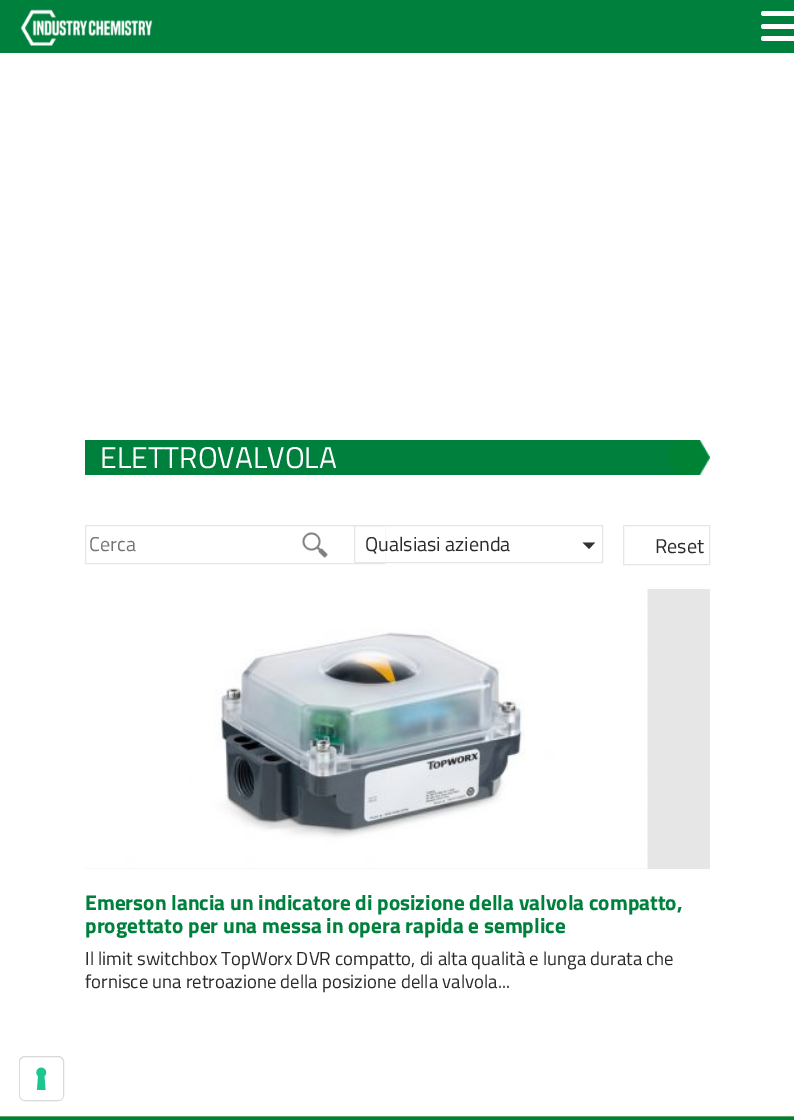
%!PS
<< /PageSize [794 1120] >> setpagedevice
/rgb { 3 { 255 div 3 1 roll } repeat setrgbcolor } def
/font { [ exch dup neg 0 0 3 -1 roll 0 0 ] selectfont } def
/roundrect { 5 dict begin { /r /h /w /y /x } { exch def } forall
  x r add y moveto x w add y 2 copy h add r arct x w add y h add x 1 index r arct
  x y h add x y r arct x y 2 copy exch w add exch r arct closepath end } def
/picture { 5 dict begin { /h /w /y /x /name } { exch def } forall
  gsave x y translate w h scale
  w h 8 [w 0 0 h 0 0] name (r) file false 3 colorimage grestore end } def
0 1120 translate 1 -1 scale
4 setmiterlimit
255 255 255 rgb
0 0 794 1120 rectfill
0 128 61 rgb
0 0 794 53 rectfill
(img/1.rgb) 20 9 133 37 picture
255 255 255 rgb
761 11 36 5 2.5 roundrect fill
761 24 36 5 2.5 roundrect fill
761 36 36 5 2.5 roundrect fill
0 128 61 rgb
85 440 592 35 rectfill
(img/2.rgb) 666 440 44 35 picture
230 230 230 rgb
85.5 525.5 299 38 rectstroke
(img/3.rgb) 302 532 26 26 picture
255 255 255 rgb
384 526 1 36 rectfill
230 230 230 rgb
354.5 525.5 248 37 rectstroke
51 51 51 rgb
582.5 542.5 moveto 595 542.5 lineto 589 549 lineto closepath fill
230 230 230 rgb
623.5 525.5 86 39 rectstroke
85 589 625 280 rectfill
(img/4.rgb) 85 589 563 280 picture
217 217 217 rgb
19.5 1056.5 44 44 5.5 roundrect stroke
255 255 255 rgb
20 1058 43 42 5 roundrect fill
(img/5.rgb) 36 1067 11 23 picture
0 128 61 rgb
0 1117 794 3 rectfill
95 170 99 rgb
0 1116 794 1 rectfill
/TitilliumWeb-Regular 30 font
255 255 255 rgb
100 468 moveto (ELETTROVALVOLA) show
/TitilliumWeb-Regular 20 font
117 117 117 rgb
89 551 moveto (Cerca) show
41 43 44 rgb
365 551 moveto (Qualsiasi azienda) show
655 553 moveto (Reset) show
/TitilliumWeb-Bold 21.25 font
0 128 61 rgb
85 910 moveto (Emerson lancia un indicatore di posizione della valvola compatto,) show
85 933 moveto (progettato per una messa in opera rapida e semplice) show
/TitilliumWeb-Regular 18.75 font
41 43 44 rgb
85 965 moveto (Il limit switchbox TopWorx DVR compatto, di alta qualità e lunga durata che) show
85 988 moveto (fornisce una retroazione della posizione della valvola...) show
showpage
